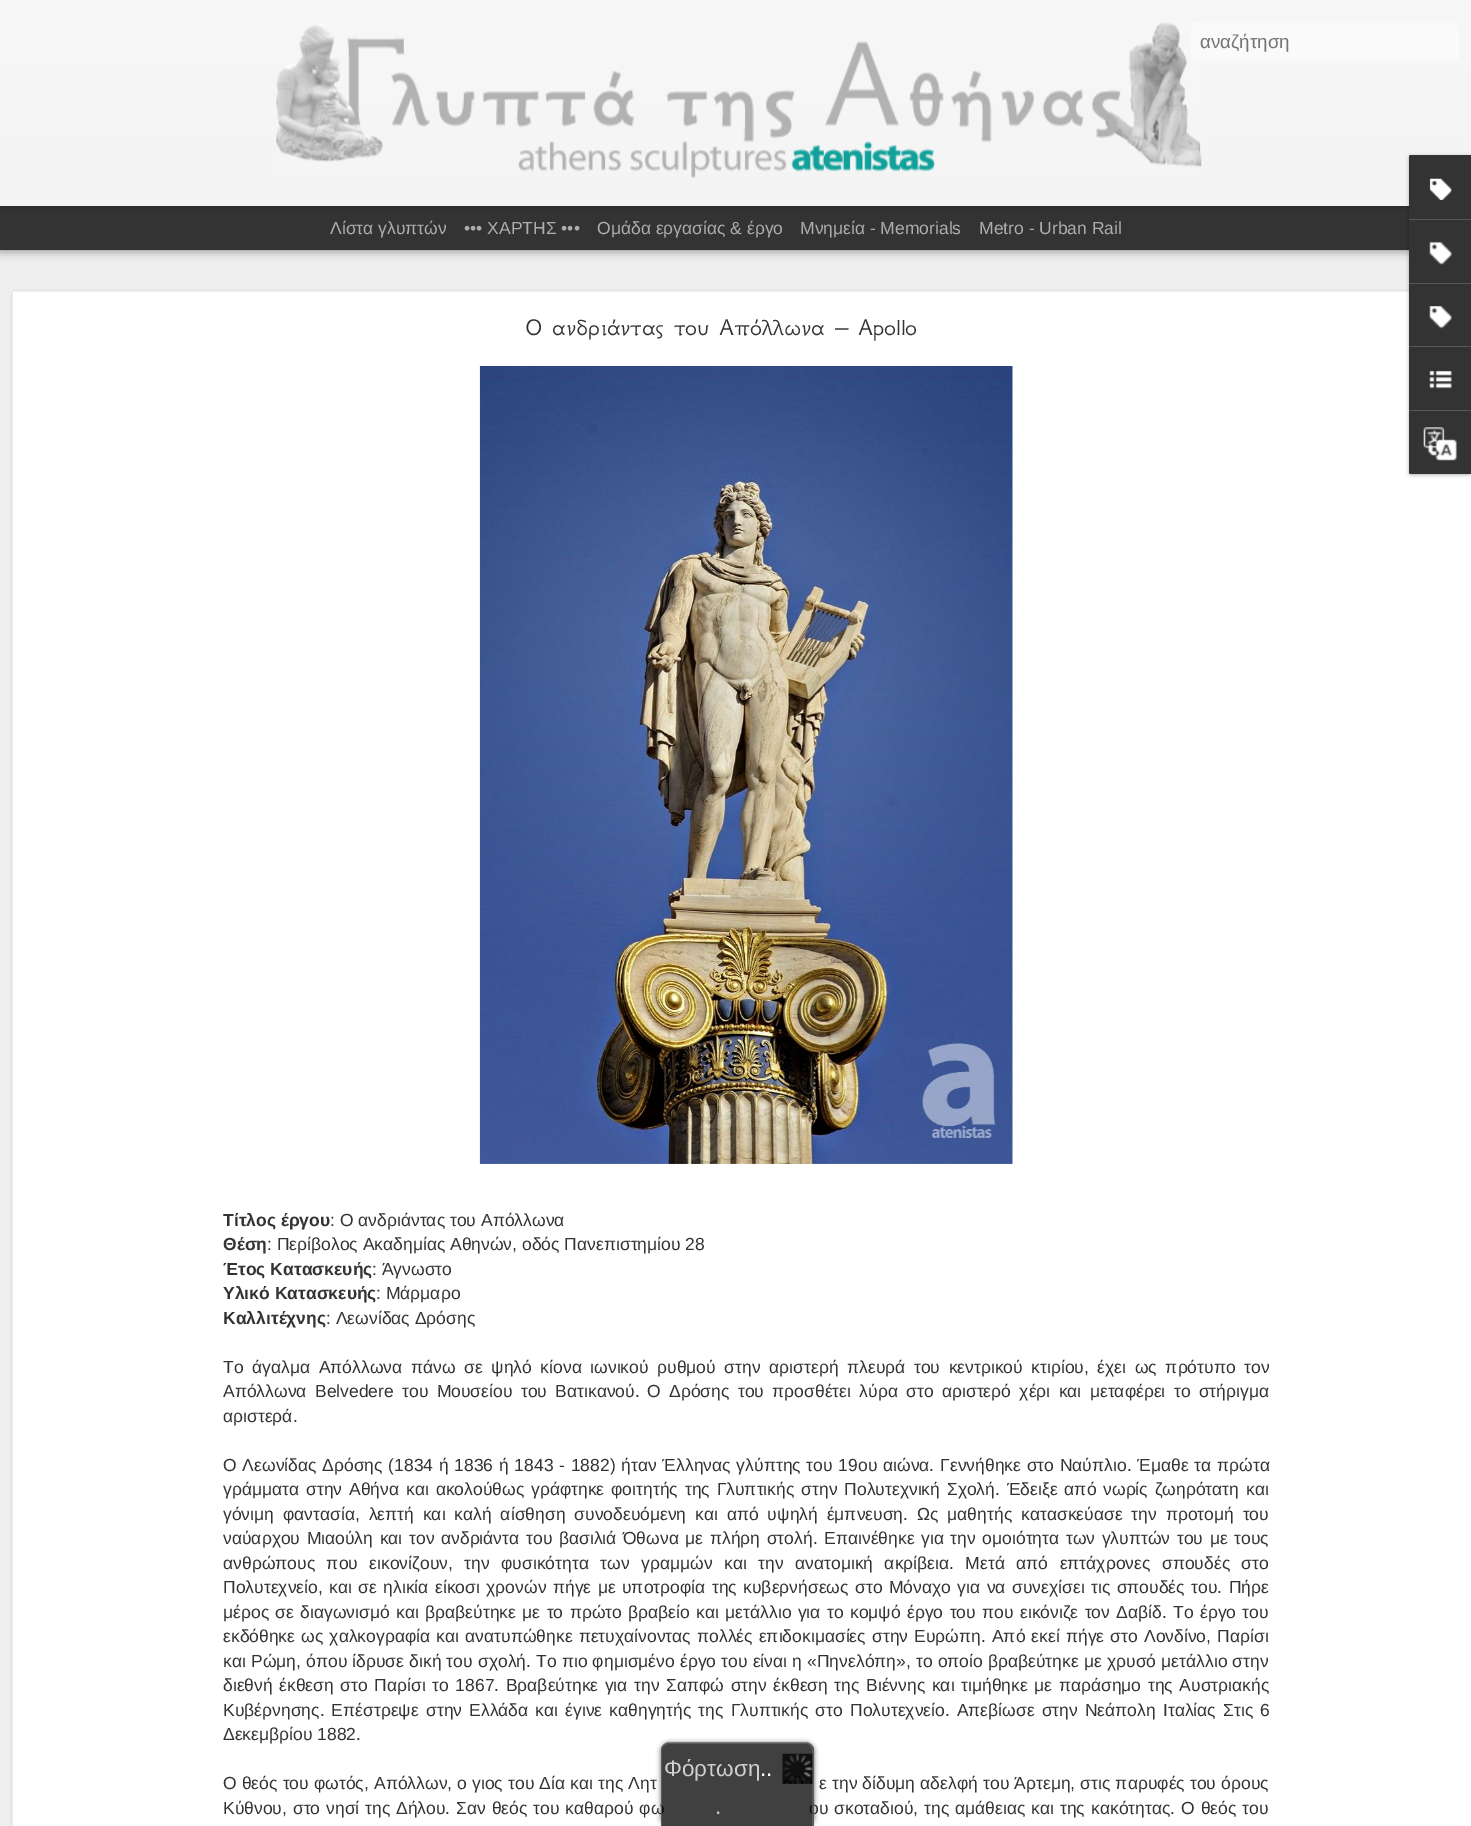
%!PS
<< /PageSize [1471 1826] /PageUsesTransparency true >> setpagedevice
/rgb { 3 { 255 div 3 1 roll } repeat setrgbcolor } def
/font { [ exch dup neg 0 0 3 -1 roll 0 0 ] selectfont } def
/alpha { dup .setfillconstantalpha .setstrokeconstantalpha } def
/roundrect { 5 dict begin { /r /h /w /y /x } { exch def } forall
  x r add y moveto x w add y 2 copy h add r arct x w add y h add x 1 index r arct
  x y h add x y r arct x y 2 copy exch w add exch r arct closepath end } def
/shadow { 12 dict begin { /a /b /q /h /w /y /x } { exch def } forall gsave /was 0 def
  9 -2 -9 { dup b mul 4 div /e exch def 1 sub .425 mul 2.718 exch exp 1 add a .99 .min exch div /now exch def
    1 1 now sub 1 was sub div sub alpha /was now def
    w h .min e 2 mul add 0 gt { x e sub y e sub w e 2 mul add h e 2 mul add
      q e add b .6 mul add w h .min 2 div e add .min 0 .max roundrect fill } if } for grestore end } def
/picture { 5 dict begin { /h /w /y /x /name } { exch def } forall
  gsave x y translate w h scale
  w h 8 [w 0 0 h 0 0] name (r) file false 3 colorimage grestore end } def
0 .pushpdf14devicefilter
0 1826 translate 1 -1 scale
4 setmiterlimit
238 238 238 rgb
0 0 1471 1826 rectfill
0 0 0 rgb
0 206 1471 44 0 5 0.5 shadow
51 51 51 rgb
0 206 1409 44 rectfill
0 0 0 rgb
0 0 1471 206 0 3 0.3 shadow
gsave 0 0 moveto 1471 0 lineto 1471 206 lineto 0 206 lineto closepath clip newpath
<< /ShadingType 2 /ColorSpace /DeviceRGB /Coords [0 0 0 206] /Extend [true true] /Function << /FunctionType 2 /Domain [0 1] /C0 [0.969 0.969 0.969] /C1 [0.957 0.957 0.957] /N 1 >> >> shfill grestore
(img/1.rgb) 276 22 926 157 picture
250 250 250 rgb
1191 23 268 37 4 roundrect fill
255 255 255 rgb
10 289 1461 1537 rectfill
(img/7.rgb) 10 289 1399 1537 picture
0 0 0 rgb
1409 156 62 319 2.5 2 0.3 shadow
51 51 51 rgb
1411.5 155 moveto 1471 155 lineto 1471 474 lineto 1411.5 474 lineto 1410 474 1409 473 1409 471.5 curveto 1409 157.5 lineto 1409 156 1410 155 1411.5 155 curveto closepath fill
1411.5 155 moveto 1471 155 lineto 1471 219 lineto 1409 219 lineto 1409 157.5 lineto 1409 156 1410 155 1411.5 155 curveto closepath fill
(img/2.rgb) 1429 178 23 22 picture
88 88 88 rgb
1409 219 62 1 rectfill
(img/3.rgb) 1429 242 23 23 picture
1409 283 62 1 rectfill
(img/4.rgb) 1429 306 23 23 picture
1409 346 62 1 rectfill
(img/5.rgb) 1429 371 23 18 picture
51 51 51 rgb
1409 410 moveto 1471 410 lineto 1471 474 lineto 1411.5 474 lineto 1410 474 1409 473 1409 471.5 curveto closepath fill
88 88 88 rgb
1409 410 62 1 rectfill
(img/6.rgb) 1423 427 34 34 picture
(img/8.rgb) 479 366 534 798 picture
gsave
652 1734 moveto 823 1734 lineto 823 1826 lineto 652 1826 lineto closepath 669 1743 moveto 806 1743 lineto 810.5 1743 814 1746.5 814 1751 curveto 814 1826 lineto 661 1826 lineto 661 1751 lineto 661 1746.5 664.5 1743 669 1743 curveto closepath eoclip newpath
51 51 51 rgb
661 1743 153 83 8 2.5 0.75 shadow
grestore
/LiberationSans-Regular 18.75 font
117 117 117 rgb
1200 48 moveto (αναζήτηση) show
/LiberationSans-Regular 17.5 font
173 173 173 rgb
[
  [(Λίστα γλυπτών) 330 234]
  [(••• ΧΑΡΤΗΣ •••) 464 234]
  [(Ομάδα εργασίας & έργο) 597 234]
  [(Μνημεία - Memorials) 800 234]
  [(Metro - Urban Rail) 979 234]
] { aload pop moveto show } forall
/GFSNeohellenic-Regular 25 font
51 51 51 rgb
525 335 moveto (Ο ανδριάντας του Απόλλωνα – Apollo) show
/LiberationSans-Bold 17.5 font
223 1226 moveto (Τίτλος έργου) show
/LiberationSans-Regular 17.5 font
330 1226 moveto (: Ο ανδριάντας του Απόλλωνα) show
/LiberationSans-Bold 17.5 font
223 1250 moveto (Θέση) show
/LiberationSans-Regular 17.5 font
267 1250 moveto (: Περίβολος Ακαδημίας Αθηνών, οδός Πανεπιστημίου 28) show
/LiberationSans-Bold 17.5 font
223 1275 moveto (Έτος Κατασκευής) show
/LiberationSans-Regular 17.5 font
372 1275 moveto (: Άγνωστο) show
/LiberationSans-Bold 17.5 font
223 1299 moveto (Υλικό Κατασκευής) show
/LiberationSans-Regular 17.5 font
376 1299 moveto (: Μάρμαρο) show
/LiberationSans-Bold 17.5 font
223 1324 moveto (Καλλιτέχνης) show
/LiberationSans-Regular 17.5 font
326 1324 moveto (: Λεωνίδας Δρόσης) show
223 1373 moveto 3.75 0 32 (Το άγαλμα Απόλλωνα πάνω σε ψηλό κίονα ιωνικού ρυθμού στην αριστερή πλευρά του κεντρικού κτιρίου, έχει ως πρότυπο τον) widthshow
223 1397 moveto 3.5 0 32 (Απόλλωνα Belvedere του Μουσείου του Βατικανού.) widthshow
647 1397 moveto 3.5 0 32 (Ο Δρόσης του προσθέτει λύρα στο αριστερό χέρι και μεταφέρει το στήριγμα) widthshow
223 1422 moveto (αριστερά.) show
223 1471 moveto 0.9 0 32 (Ο Λεωνίδας Δρόσης \(1834 ή 1836 ή 1843 - 1882\) ήταν Έλληνας γλύπτης του 19ου αιώνα. Γεννήθηκε στο Ναύπλιο. Έμαθε τα πρώτα) widthshow
223 1495 moveto 2 0 32 (γράμματα στην Αθήνα και ακολούθως γράφτηκε φοιτητής της Γλυπτικής στην Πολυτεχνική Σχολή. Έδειξε από νωρίς ζωηρότατη και) widthshow
223 1520 moveto 4 0 32 (γόνιμη φαντασία, λεπτή και καλή αίσθηση συνοδευόμενη και από υψηλή έμπνευση. Ως μαθητής κατασκεύασε την προτομή του) widthshow
223 1544 moveto 1.75 0 32 (ναύαρχου Μιαούλη και τον ανδριάντα του βασιλιά Όθωνα με πλήρη στολή. Επαινέθηκε για την ομοιότητα των γλυπτών του με τους) widthshow
223 1569 moveto 6.6 0 32 (ανθρώπους που εικονίζουν, την φυσικότητα των γραμμών και την ανατομική ακρίβεια. Μετά από επτάχρονες σπουδές στο) widthshow
223 1593 moveto 1.6 0 32 (Πολυτεχνείο, και σε ηλικία είκοσι χρονών πήγε με υποτροφία της κυβερνήσεως στο Μόναχο για να συνεχίσει τις σπουδές του. Πήρε) widthshow
223 1618 moveto 1.5 0 32 (μέρος σε διαγωνισμό και βραβεύτηκε με το πρώτο βραβείο και μετάλλιο για το κομψό έργο του που εικόνιζε τον Δαβίδ. Το έργο του) widthshow
223 1642 moveto 1.3 0 32 (εκδόθηκε ως χαλκογραφία και ανατυπώθηκε πετυχαίνοντας πολλές επιδοκιμασίες στην Ευρώπη. Από εκεί πήγε στο Λονδίνο, Παρίσι) widthshow
223 1667 moveto 0.3 0 32 (και Ρώμη, όπου ίδρυσε δική του σχολή. Το πιο φημισμένο έργο του είναι η «Πηνελόπη», το οποίο βραβεύτηκε με χρυσό μετάλλιο στην) widthshow
223 1691 moveto 1.7 0 32 (διεθνή έκθεση στο Παρίσι το 1867. Βραβεύτηκε για την Σαπφώ στην έκθεση της Βιέννης και τιμήθηκε με παράσημο της Αυστριακής) widthshow
223 1716 moveto 2.25 0 32 (Κυβέρνησης. Επέστρεψε στην Ελλάδα και έγινε καθηγητής της Γλυπτικής στο Πολυτεχνείο. Απεβίωσε στην Νεάπολη Ιταλίας Στις 6) widthshow
223 1740 moveto (Δεκεμβρίου 1882.) show
223 1789 moveto 0.25 0 32 (Ο θεός του φωτός, Απόλλων, ο γιος του Δία και της Λητ) widthshow
819 1789 moveto 0.25 0 32 (ε την δίδυμη αδελφή του Άρτεμη, στις παρυφές του όρους) widthshow
223 1814 moveto 1 0 32 (Κύθνου, στο νησί της Δήλου. Σαν θεός του καθαρού φω) widthshow
809 1814 moveto 1 0 32 (ου σκοταδιού, της αμάθειας και της) widthshow
1091 1814 moveto 1 0 32 (κακότητας. Ο θεός του) widthshow
0.75 alpha
0 0 0 rgb
669 1743 moveto 806 1743 lineto 810.5 1743 814 1746.5 814 1751 curveto 814 1826 lineto 661 1826 lineto 661 1751 lineto 661 1746.5 664.5 1743 669 1743 curveto closepath fill
102 102 102 rgb
669 1742 moveto 806 1742 lineto 810 1742 814 1746 814 1750 curveto 814 1826 lineto 661 1826 lineto 661 1750 lineto 661 1746 665 1742 669 1742 curveto closepath 669 1744 moveto 806 1744 lineto 810 1744 812 1747 812 1750 curveto 812 1826 lineto 662 1826 lineto 662 1750 lineto 662 1747 665 1744 669 1744 curveto closepath eofill
1 alpha
(img/9.rgb) 782 1753 31 31 picture
/LiberationSans-Regular 22.5 font
207 207 207 rgb
664 1776 moveto (Φόρτωση) show
255 255 255 rgb
760 1776 moveto (..) show
201 201 201 rgb
715 1814 moveto (.) show
.poppdf14devicefilter showpage
